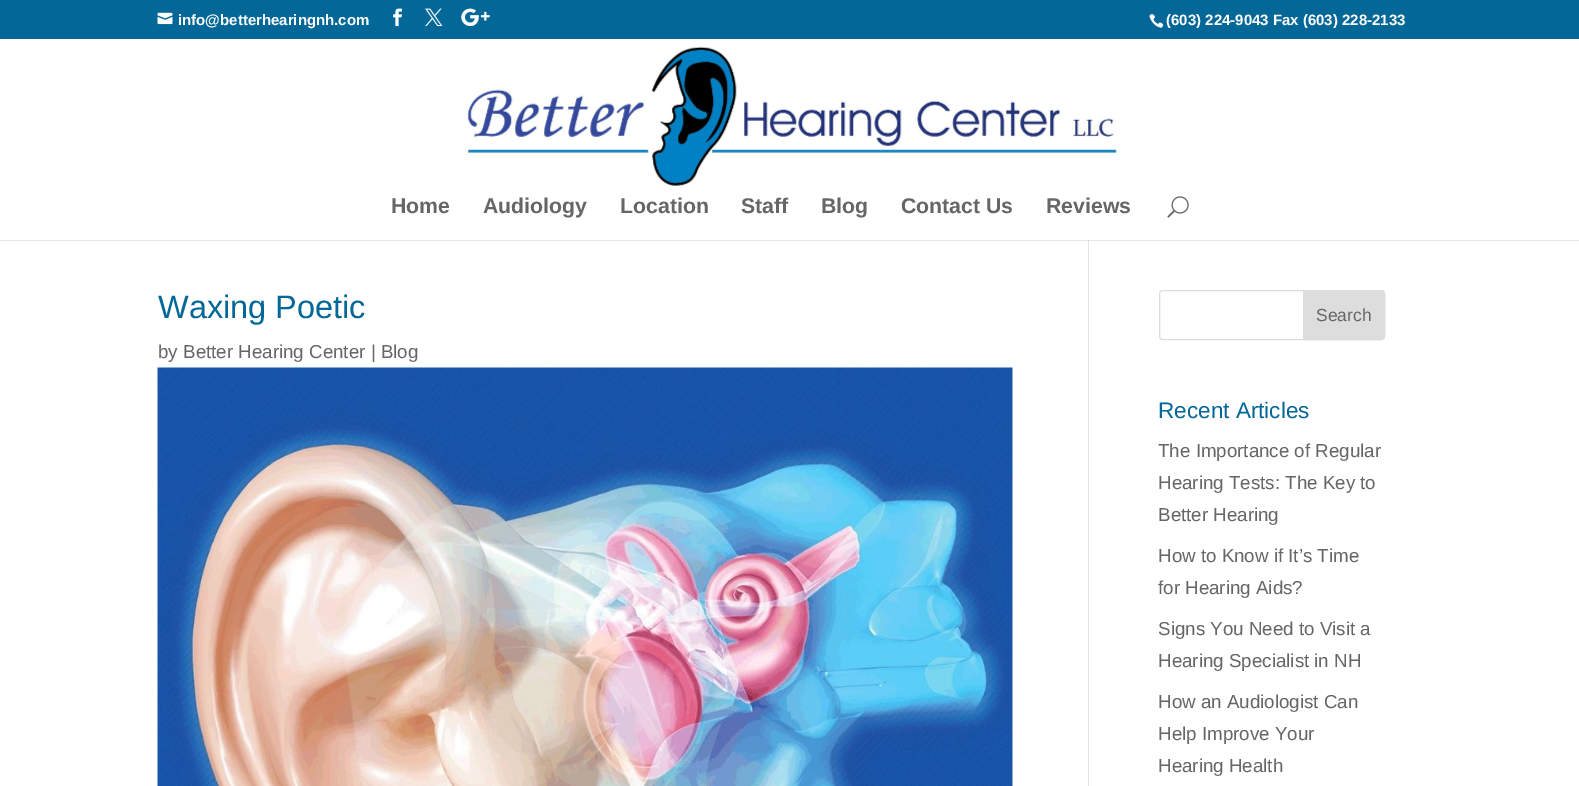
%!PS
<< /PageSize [1579 786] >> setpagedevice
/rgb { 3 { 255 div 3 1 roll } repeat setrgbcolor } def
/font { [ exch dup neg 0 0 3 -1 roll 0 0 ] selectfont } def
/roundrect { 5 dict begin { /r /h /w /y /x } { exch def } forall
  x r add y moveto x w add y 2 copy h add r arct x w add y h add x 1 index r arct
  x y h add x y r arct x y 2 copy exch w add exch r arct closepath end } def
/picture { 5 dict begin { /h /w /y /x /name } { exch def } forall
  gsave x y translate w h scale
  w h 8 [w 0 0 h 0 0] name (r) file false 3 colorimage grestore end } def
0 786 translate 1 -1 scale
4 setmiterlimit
255 255 255 rgb
0 0 1579 786 rectfill
230 230 230 rgb
0 240 1579 1 rectfill
3 103 151 rgb
0 0 1579 39 rectfill
(img/1.rgb) 157 12 16 13 picture
(img/2.rgb) 393 8 9 19 picture
(img/3.rgb) 425 8 18 19 picture
(img/4.rgb) 461 8 29 19 picture
(img/5.rgb) 1149 14 15 14 picture
(img/6.rgb) 466 46 652 140 picture
(img/7.rgb) 1167 196 22 22 picture
229 229 229 rgb
1088 240 1 546 rectfill
206 206 206 rgb
1088 240 1 1 rectfill
(img/8.rgb) 157 367 856 419 picture
221 221 221 rgb
1159.5 290.5 225 49 3.5 roundrect stroke
1303.5 290.5 moveto 1381 290.5 lineto 1383 290.5 1384.5 292 1384.5 294 curveto 1384.5 336 lineto 1384.5 338 1383 339.5 1381 339.5 curveto 1303.5 339.5 lineto closepath gsave fill grestore
stroke
/LiberationSans-Bold 15 font
255 255 255 rgb
178 25 moveto (info@betterhearingnh.com) show
1166 25 moveto (\(603\) 224-9043 Fax \(603\) 228-2133) show
/LiberationSans-Bold 21.25 font
102 102 102 rgb
[
  [(Home) 391 213]
  [(Audiology) 483 213]
  [(Location) 620 213]
  [(Staff) 741 213]
  [(Blog) 821 213]
  [(Contact Us) 901 213]
  [(Reviews) 1046 213]
] { aload pop moveto show } forall
/LiberationSans-Regular 32.5 font
3 103 151 rgb
158 318 moveto (Waxing Poetic) show
/LiberationSans-Regular 18.75 font
102 102 102 rgb
158 358 moveto (by Better Hearing Center | Blog) show
/LiberationSans-Regular 17.5 font
1316 321 moveto (Search) show
/LiberationSans-Regular 22.5 font
3 103 151 rgb
1158 418 moveto (Recent Articles) show
/LiberationSans-Regular 18.75 font
102 102 102 rgb
[
  [(The Importance of Regular) 1158 457]
  [(Hearing Tests: The Key to) 1158 489]
  [(Better Hearing) 1158 521]
  [(How to Know if It’s Time) 1158 562]
  [(for Hearing Aids?) 1158 594]
  [(Signs You Need to Visit a) 1158 635]
  [(Hearing Specialist in NH) 1158 667]
  [(How an Audiologist Can) 1158 708]
  [(Help Improve Your) 1158 740]
  [(Hearing Health) 1158 772]
] { aload pop moveto show } forall
showpage
